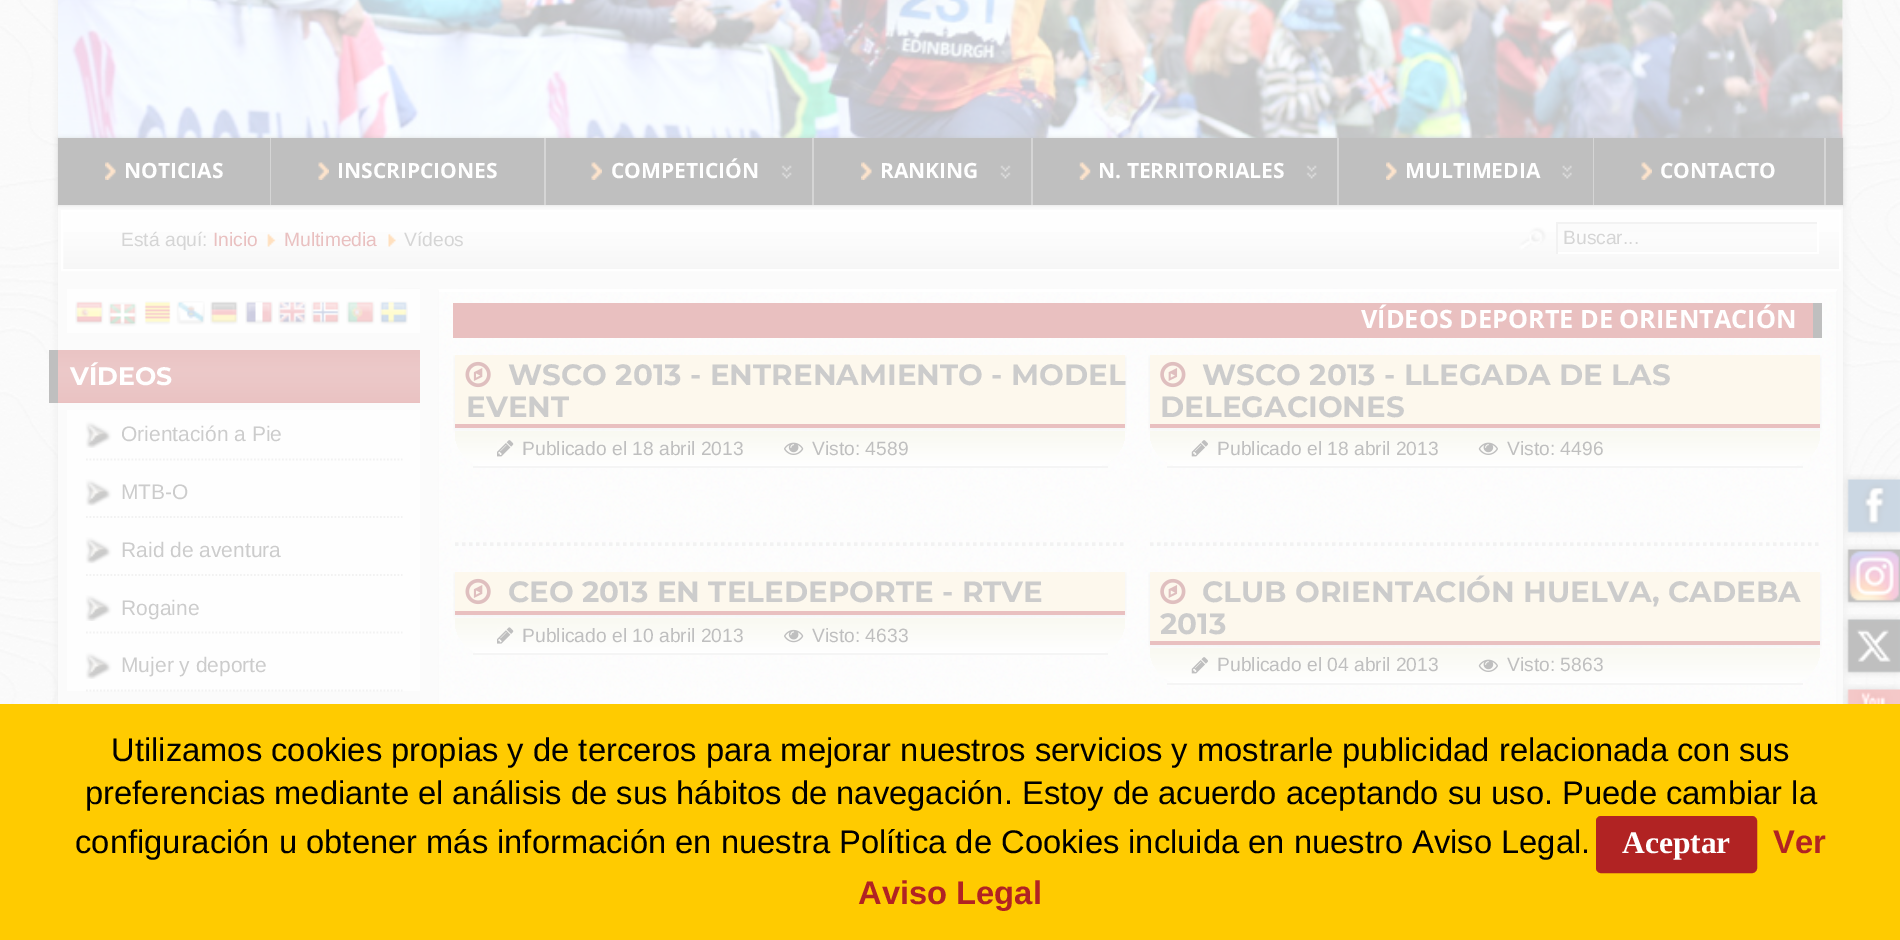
%!PS
<< /PageSize [1900 940] /PageUsesTransparency true >> setpagedevice
/rgb { 3 { 255 div 3 1 roll } repeat setrgbcolor } def
/font { [ exch dup neg 0 0 3 -1 roll 0 0 ] selectfont } def
/alpha { dup .setfillconstantalpha .setstrokeconstantalpha } def
/roundrect { 5 dict begin { /r /h /w /y /x } { exch def } forall
  x r add y moveto x w add y 2 copy h add r arct x w add y h add x 1 index r arct
  x y h add x y r arct x y 2 copy exch w add exch r arct closepath end } def
/shadow { 12 dict begin { /a /b /q /h /w /y /x } { exch def } forall gsave /was 0 def
  9 -2 -9 { dup b mul 4 div /e exch def 1 sub .425 mul 2.718 exch exp 1 add a .99 .min exch div /now exch def
    1 1 now sub 1 was sub div sub alpha /was now def
    w h .min e 2 mul add 0 gt { x e sub y e sub w e 2 mul add h e 2 mul add
      q e add b .6 mul add w h .min 2 div e add .min 0 .max roundrect fill } if } for grestore end } def
/picture { 5 dict begin { /h /w /y /x /name } { exch def } forall
  gsave x y translate w h scale
  w h 8 [w 0 0 h 0 0] name (r) file false 3 colorimage grestore end } def
0 .pushpdf14devicefilter
0 940 translate 1 -1 scale
4 setmiterlimit
255 255 255 rgb
0 0 1900 940 rectfill
(img/1.rgb) 0 0 1900 704 picture
191 191 191 rgb
56 -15 1789 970 0 5 0.2 shadow
251 251 251 rgb
58 205 1785 499 rectfill
1842 0 1 138 rectfill
(img/2.rgb) 58 0 1785 138 picture
254 254 254 rgb
63 212 1776 57 rectfill
(img/11.rgb) 63 232 1776 37 picture
255 255 255 rgb
2 setlinewidth
62 211 1778 59 rectstroke
191 191 191 rgb
58 138 1785 67 0 2 0.5 shadow
58 138 1785 67 rectfill
213 213 213 rgb
270 138 1 67 rectfill
(img/3.rgb) 105 162 11 18 picture
544 138 2 67 rectfill
(img/4.rgb) 318 162 11 18 picture
812 138 2 67 rectfill
(img/5.rgb) 781 165 11 14 picture
(img/4.rgb) 591 162 11 18 picture
1031 138 2 67 rectfill
(img/6.rgb) 1000 165 11 14 picture
(img/7.rgb) 861 162 11 18 picture
1337 138 2 67 rectfill
(img/5.rgb) 1306 165 11 14 picture
(img/8.rgb) 1079 162 12 18 picture
1593 138 1 67 rectfill
(img/9.rgb) 1562 165 10 14 picture
(img/3.rgb) 1386 162 11 18 picture
1824 138 2 67 rectfill
(img/10.rgb) 1641 162 11 18 picture
(img/12.rgb) 267 233 9 14 picture
(img/13.rgb) 388 233 8 14 picture
(img/14.rgb) 1519 227 28 23 picture
[
  [1558 224 259 8 251 251 251]
  [1556 222 262 2 242 242 242]
  [1817 222 2 32 255 255 255]
  [1556 252 262 2 255 255 255]
  [1556 222 2 32 242 242 242]
] { aload pop rgb rectfill } forall
(img/15.rgb) 388 288 32 1 picture
254 254 254 rgb
67 289 353 44 rectfill
(img/16.rgb) 75 301 29 24 picture
(img/17.rgb) 108 302 29 25 picture
(img/18.rgb) 144 301 27 24 picture
(img/19.rgb) 176 301 29 24 picture
(img/20.rgb) 210 301 28 24 picture
(img/21.rgb) 245 301 28 24 picture
(img/22.rgb) 278 301 29 24 picture
(img/23.rgb) 311 301 29 24 picture
(img/24.rgb) 346 301 29 24 picture
(img/25.rgb) 379 301 29 24 picture
233 192 192 rgb
58 350 362 53 rectfill
(img/26.rgb) 58 350 362 52 picture
191 191 191 rgb
49 350 9 53 rectfill
254 254 254 rgb
67 410 353 281 rectfill
242 242 242 rgb
1.8 setlinewidth
[1.75 1.75] 0 setdash
86 459.5 moveto 402.5 459.5 lineto stroke
(img/27.rgb) 85 421 27 27 picture
86 517 moveto 402.5 517 lineto stroke
(img/28.rgb) 85 479 27 27 picture
86 575 moveto 402.5 575 lineto stroke
(img/29.rgb) 85 537 27 27 picture
86 632.5 moveto 402.5 632.5 lineto stroke
(img/30.rgb) 85 595 27 26 picture
86 690.5 moveto 402.5 690.5 lineto stroke
(img/27.rgb) 85 652 27 27 picture
254 254 254 rgb
439 292 1397 412 rectfill
(img/31.rgb) 437 288 1401 416 picture
255 255 255 rgb
438 289 moveto 1838 289 lineto 1836 292 lineto 439 292 lineto closepath fill
250 250 250 rgb
1838 289 moveto 1838 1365 lineto 1836 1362 lineto 1836 292 lineto closepath fill
438 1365 moveto 438 289 lineto 439 292 lineto 439 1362 lineto closepath fill
233 192 192 rgb
453 303 1360 35 rectfill
191 191 191 rgb
1813 303 9 35 rectfill
gsave
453 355 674 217 rectclip
242 242 242 rgb
455 357 670 72 0 3.5 1 shadow
grestore
253 248 237 rgb
455 355 670 69 rectfill
233 192 192 rgb
455 424 670 4 rectfill
(img/32.rgb) 465 361 26 27 picture
gsave
455 431 moveto 1125 431 lineto 1125 432 lineto 1125 451.5 1109.5 467 1090 467 curveto 490 467 lineto 470.5 467 455 451.5 455 432 curveto closepath clip newpath
gsave 455 431 moveto 1125 431 lineto 1125 466 lineto 455 466 lineto closepath clip newpath
<< /ShadingType 2 /ColorSpace /DeviceRGB /Coords [790 430 790 466] /Extend [true true] /Function << /FunctionType 2 /Domain [0 1] /C0 [0.976 0.976 0.945] /C1 [1 1 1] /N 1 >> >> shfill grestore
grestore
245 245 245 rgb
473 466 635 2 rectfill
(img/33.rgb) 497 440 17 17 picture
(img/34.rgb) 784 442 20 13 picture
242 242 242 rgb
3.5 setlinewidth
[3.5 3.5] 0 setdash
455 544 moveto 1125 544 lineto stroke
gsave
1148 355 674 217 rectclip
1150 357 670 72 0 3.5 1 shadow
grestore
253 248 237 rgb
1150 355 670 69 rectfill
233 192 192 rgb
1150 424 670 4 rectfill
(img/35.rgb) 1160 361 26 27 picture
gsave
1150 431 moveto 1820 431 lineto 1820 432 lineto 1820 451.5 1804.5 467 1785 467 curveto 1185 467 lineto 1165.5 467 1150 451.5 1150 432 curveto closepath clip newpath
gsave 1150 431 moveto 1820 431 lineto 1820 466 lineto 1150 466 lineto closepath clip newpath
<< /ShadingType 2 /ColorSpace /DeviceRGB /Coords [1485 430 1485 466] /Extend [true true] /Function << /FunctionType 2 /Domain [0 1] /C0 [0.976 0.976 0.945] /C1 [1 1 1] /N 1 >> >> shfill grestore
grestore
245 245 245 rgb
1167 466 636 2 rectfill
(img/36.rgb) 1191 440 17 17 picture
(img/37.rgb) 1478 442 20 13 picture
242 242 242 rgb
1150 544 moveto 1820 544 lineto stroke
gsave
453 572 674 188 rectclip
455 574 670 42 0 3.5 1 shadow
grestore
253 248 237 rgb
455 572 670 39 rectfill
233 192 192 rgb
455 611 670 4 rectfill
(img/32.rgb) 465 578 26 27 picture
gsave
455 618 moveto 1125 618 lineto 1125 620 lineto 1125 639.5 1109.5 655 1090 655 curveto 490 655 lineto 470.5 655 455 639.5 455 620 curveto closepath clip newpath
gsave 455 618 moveto 1125 618 lineto 1125 653 lineto 455 653 lineto closepath clip newpath
<< /ShadingType 2 /ColorSpace /DeviceRGB /Coords [790 618 790 653] /Extend [true true] /Function << /FunctionType 2 /Domain [0 1] /C0 [0.976 0.976 0.945] /C1 [1 1 1] /N 1 >> >> shfill grestore
grestore
245 245 245 rgb
473 653 635 2 rectfill
(img/38.rgb) 497 627 17 17 picture
(img/39.rgb) 784 629 20 14 picture
gsave
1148 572 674 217 rectclip
242 242 242 rgb
1150 574 670 72 0 3.5 1 shadow
grestore
253 248 237 rgb
1150 572 670 69 rectfill
233 192 192 rgb
1150 641 670 4 rectfill
(img/35.rgb) 1160 578 26 27 picture
gsave
1150 648 moveto 1820 648 lineto 1820 649 lineto 1820 668.5 1804.5 684 1785 684 curveto 1185 684 lineto 1165.5 684 1150 668.5 1150 649 curveto closepath clip newpath
gsave 1150 648 moveto 1820 648 lineto 1820 683 lineto 1150 683 lineto closepath clip newpath
<< /ShadingType 2 /ColorSpace /DeviceRGB /Coords [1485 648 1485 683] /Extend [true true] /Function << /FunctionType 2 /Domain [0 1] /C0 [0.976 0.976 0.945] /C1 [1 1 1] /N 1 >> >> shfill grestore
grestore
245 245 245 rgb
1167 683 636 2 rectfill
(img/40.rgb) 1191 657 17 17 picture
(img/41.rgb) 1478 659 20 13 picture
(img/42.rgb) 1842 474 58 64 picture
(img/43.rgb) 1842 544 58 64 picture
(img/44.rgb) 1842 614 58 64 picture
(img/45.rgb) 1842 684 58 20 picture
255 203 0 rgb
0 704 1900 236 rectfill
177 35 35 rgb
1597 817 159 55 4 roundrect gsave fill grestore
2 setlinewidth
[] 0 setdash
stroke
/OpenSans-Bold 21 font
255 255 255 rgb
[
  [(NOTICIAS) 124 178]
  [(INSCRIPCIONES) 337 178]
  [(COMPETICIÓN) 611 178]
  [(RANKING) 880 178]
  [(N. TERRITORIALES) 1098 178]
  [(MULTIMEDIA) 1405 178]
  [(CONTACTO) 1660 178]
] { aload pop moveto show } forall
/LiberationSans-Regular 19.25 font
213 213 213 rgb
121 246 moveto (Está aquí:) show
233 192 192 rgb
213 246 moveto (Inicio) show
284 246 moveto (Multimedia) show
213 213 213 rgb
404 246 moveto (Vídeos) show
1563 244 moveto (Buscar...) show
/Montserrat-Bold 25.25 font
255 255 255 rgb
70 385 moveto (VÍDEOS) show
/LiberationSans-Regular 21 font
204 204 204 rgb
[
  [(Orientación a Pie) 121 441]
  [(MTB-O) 121 499]
  [(Raid de aventura) 121 557]
  [(Rogaine) 121 615]
  [(Mujer y deporte) 121 672]
] { aload pop moveto show } forall
/OpenSans-Bold 25.25 font
255 255 255 rgb
1361 328 moveto (VÍDEOS DEPORTE DE ORIENTACIÓN) show
/Montserrat-Bold 29.4 font
204 204 204 rgb
508 385 moveto (WSCO 2013 - ENTRENAMIENTO - MODEL) show
466 417 moveto (EVENT) show
/LiberationSans-Regular 19.25 font
191 191 191 rgb
522 455 moveto (Publicado el 18 abril 2013) show
812 455 moveto (Visto: 4589) show
/Montserrat-Bold 29.4 font
204 204 204 rgb
1202 385 moveto (WSCO 2013 - LLEGADA DE LAS) show
1160 417 moveto (DELEGACIONES) show
/LiberationSans-Regular 19.25 font
191 191 191 rgb
1217 455 moveto (Publicado el 18 abril 2013) show
1507 455 moveto (Visto: 4496) show
/Montserrat-Bold 29.4 font
204 204 204 rgb
508 602 moveto (CEO 2013 EN TELEDEPORTE - RTVE) show
/LiberationSans-Regular 19.25 font
191 191 191 rgb
522 642 moveto (Publicado el 10 abril 2013) show
812 642 moveto (Visto: 4633) show
/Montserrat-Bold 29.4 font
204 204 204 rgb
1202 602 moveto (CLUB ORIENTACIÓN HUELVA, CADEBA) show
1160 634 moveto (2013) show
/LiberationSans-Regular 19.25 font
191 191 191 rgb
1217 671 moveto (Publicado el 04 abril 2013) show
1507 671 moveto (Visto: 5863) show
/LiberationSans-Regular 32.73 font
0 0 0 rgb
[
  [(Utilizamos cookies propias y de terceros para mejorar nuestros servicios y mostrarle publicidad relacionada con sus) 111 761]
  [(preferencias mediante el análisis de sus hábitos de navegación. Estoy de acuerdo aceptando su uso. Puede cambiar la) 85 804]
  [(configuración u obtener más información en nuestra Política de Cookies incluida en nuestro Aviso Legal.) 75 853]
] { aload pop moveto show } forall
/LiberationSerif-Bold 31.5 font
255 255 255 rgb
1622 853 moveto (Aceptar) show
/LiberationSans-Bold 32.73 font
177 35 35 rgb
1773 853 moveto (Ver) show
858 904 moveto (Aviso Legal) show
.poppdf14devicefilter showpage
